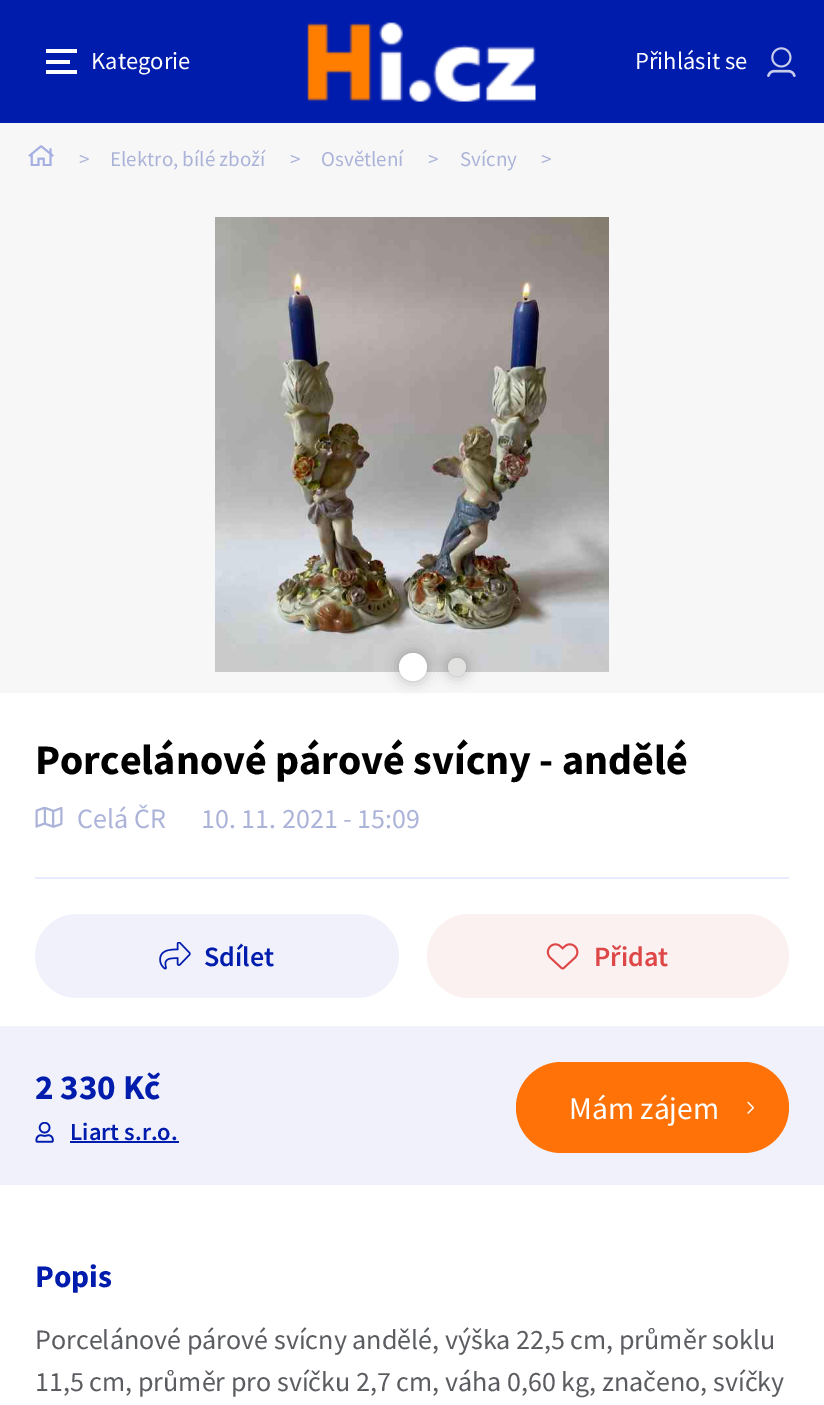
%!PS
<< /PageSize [824 1405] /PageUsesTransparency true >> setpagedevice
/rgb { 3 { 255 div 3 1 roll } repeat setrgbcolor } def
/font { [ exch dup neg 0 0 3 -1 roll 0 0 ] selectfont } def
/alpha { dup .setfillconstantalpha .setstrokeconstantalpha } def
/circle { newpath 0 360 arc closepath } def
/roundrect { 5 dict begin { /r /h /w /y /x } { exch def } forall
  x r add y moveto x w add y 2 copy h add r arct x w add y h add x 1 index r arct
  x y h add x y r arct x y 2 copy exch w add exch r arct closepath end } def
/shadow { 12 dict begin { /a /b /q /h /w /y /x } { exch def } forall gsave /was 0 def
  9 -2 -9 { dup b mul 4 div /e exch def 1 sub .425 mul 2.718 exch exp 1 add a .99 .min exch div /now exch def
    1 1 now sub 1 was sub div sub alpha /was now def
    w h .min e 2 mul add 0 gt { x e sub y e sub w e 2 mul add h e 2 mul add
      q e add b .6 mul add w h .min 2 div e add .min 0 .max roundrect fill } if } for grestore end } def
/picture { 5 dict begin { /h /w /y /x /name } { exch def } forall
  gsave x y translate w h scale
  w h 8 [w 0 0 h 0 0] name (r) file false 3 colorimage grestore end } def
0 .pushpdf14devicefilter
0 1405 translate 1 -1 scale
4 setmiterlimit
247 247 247 rgb
0 0 824 1405 rectfill
[
  [0 0 824 123 0 28 173]
  [46 49 31 4 255 255 255]
  [46 60 24 4 255 255 255]
  [46 70 31 4 255 255 255]
] { aload pop rgb rectfill } forall
(img/1.rgb) 307 22 229 80 picture
(img/2.rgb) 767 47 29 30 picture
(img/3.rgb) 28 145 26 21 picture
(img/4.rgb) 215 217 394 455 picture
0 693 824 712 rectfill
0 0 0 rgb
399 653 28 28 14 7 0.25 shadow
255 255 255 rgb
413 667 14 circle fill
0 0 0 rgb
448 658 18 18 9 7 0.25 shadow
225 225 224 rgb
457 667 9 circle fill
232 235 255 rgb
35 877 754 2 rectfill
(img/5.rgb) 35 807 28 21 picture
240 241 250 rgb
35 914 364 84 42 roundrect fill
(img/6.rgb) 159 942 32 28 picture
251 241 241 rgb
427 914 362 84 42 roundrect fill
(img/7.rgb) 546 943 33 27 picture
240 241 250 rgb
0 1026 824 159 rectfill
255 114 8 rgb
516 1062 273 91 45.5 roundrect fill
(img/8.rgb) 747 1101 7 13 picture
(img/9.rgb) 35 1122 19 21 picture
0 28 173 rgb
70 1141 109 2 rectfill
/SourceSansPro-Regular 24.5 font
255 255 255 rgb
91 69 moveto (Kategorie) show
635 69 moveto (Přihlásit se) show
/SourceSansPro-Regular 21 font
172 179 216 rgb
[
  [(>) 79 166]
  [(Elektro, bílé zboží) 110 166]
  [(>) 290 166]
  [(Osvětlení) 321 166]
  [(>) 428 166]
  [(Svícny) 460 166]
  [(>) 541 166]
] { aload pop moveto show } forall
/SourceSansPro-Bold 42 font
0 0 0 rgb
35 774 moveto (Porcelánové párové svícny - andělé) show
/SourceSansPro-Regular 28 font
172 179 216 rgb
77 828 moveto (Celá ČR) show
201 828 moveto (10. 11. 2021 - 15:09) show
/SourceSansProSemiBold-SemiBold 28 font
0 28 173 rgb
204 966 moveto (Sdílet) show
222 71 71 rgb
594 966 moveto (Přidat) show
/SourceSansPro-Bold 35 font
0 28 173 rgb
35 1099 moveto (2 330 Kč) show
/SourceSansPro-Regular 31.5 font
255 255 255 rgb
569 1119 moveto (Mám zájem) show
/SourceSansProSemiBold-SemiBold 24.5 font
0 28 173 rgb
70 1140 moveto (Liart s.r.o.) show
/SourceSansPro-Bold 31.5 font
35 1287 moveto (Popis) show
/SourceSansPro-Regular 28 font
90 92 96 rgb
35 1349 moveto (Porcelánové párové svícny andělé, výška 22,5 cm, průměr soklu) show
35 1391 moveto (11,5 cm, průměr pro svíčku 2,7 cm, váha 0,60 kg, značeno, svíčky) show
.poppdf14devicefilter showpage
